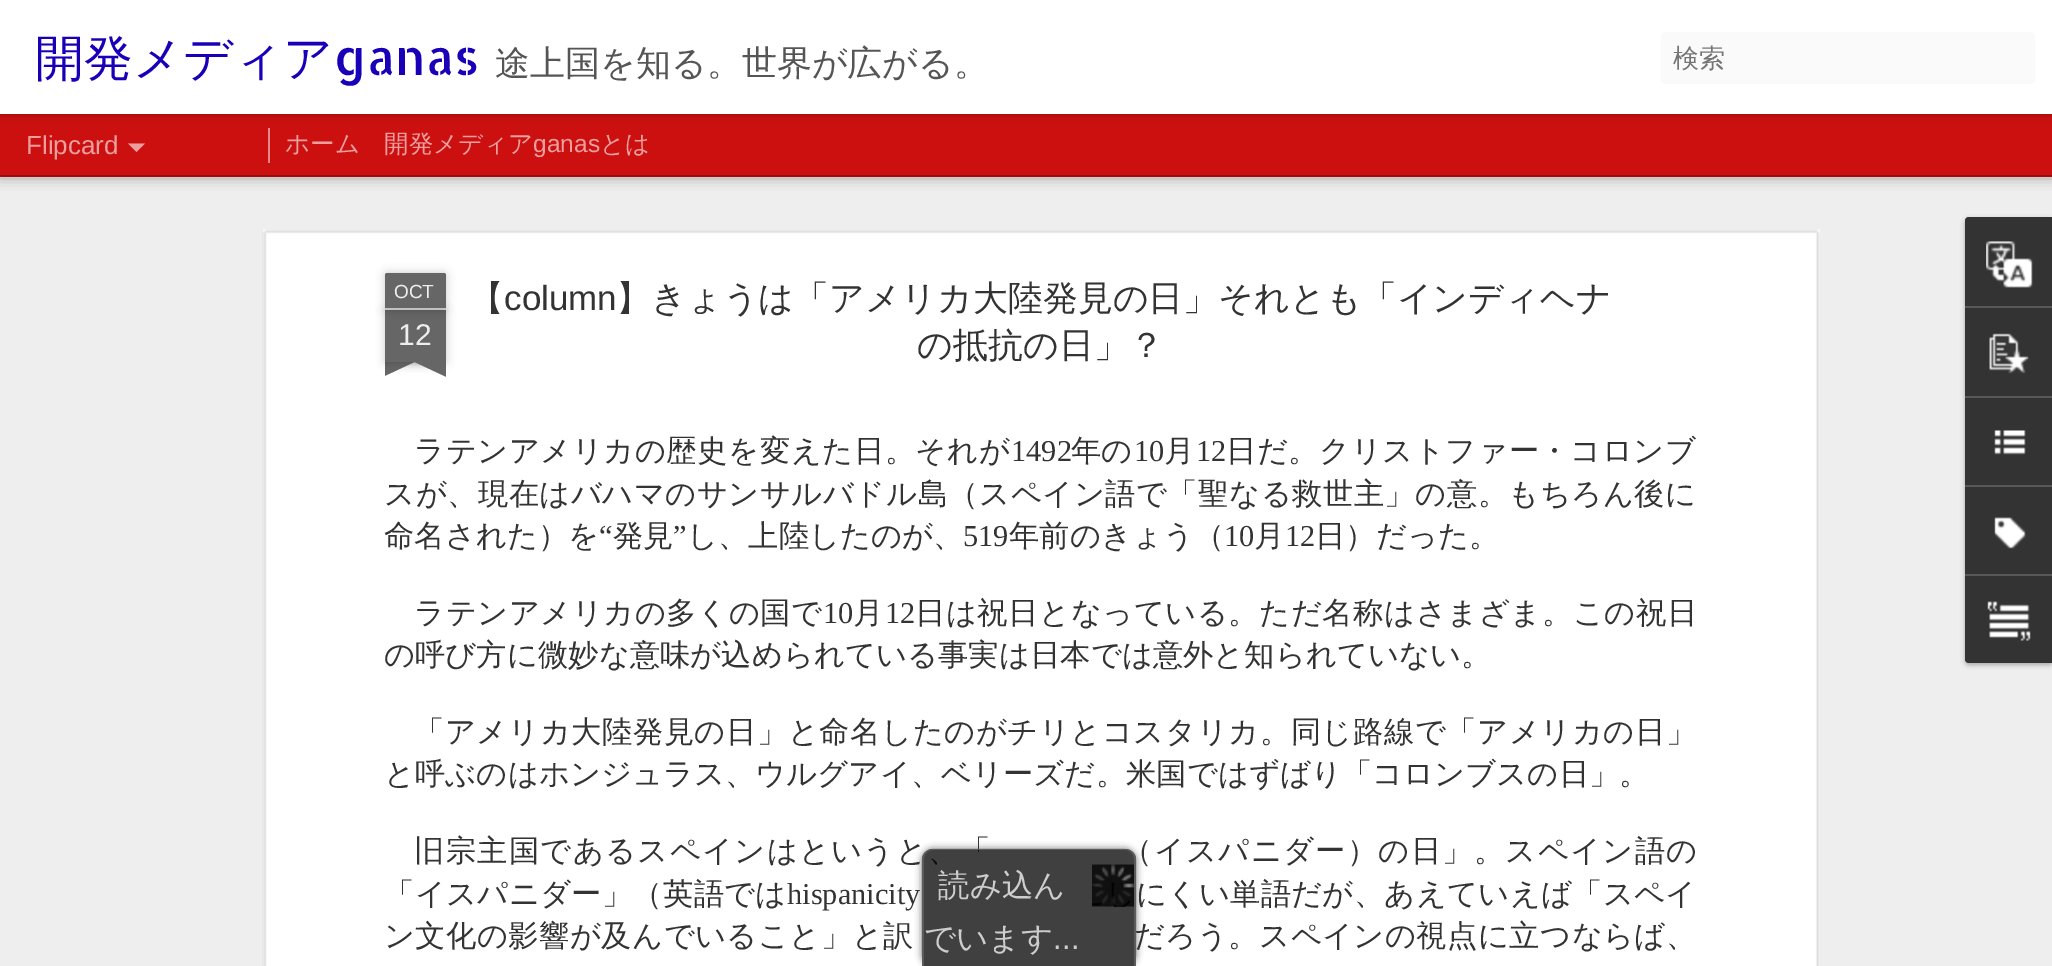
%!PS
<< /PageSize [2052 966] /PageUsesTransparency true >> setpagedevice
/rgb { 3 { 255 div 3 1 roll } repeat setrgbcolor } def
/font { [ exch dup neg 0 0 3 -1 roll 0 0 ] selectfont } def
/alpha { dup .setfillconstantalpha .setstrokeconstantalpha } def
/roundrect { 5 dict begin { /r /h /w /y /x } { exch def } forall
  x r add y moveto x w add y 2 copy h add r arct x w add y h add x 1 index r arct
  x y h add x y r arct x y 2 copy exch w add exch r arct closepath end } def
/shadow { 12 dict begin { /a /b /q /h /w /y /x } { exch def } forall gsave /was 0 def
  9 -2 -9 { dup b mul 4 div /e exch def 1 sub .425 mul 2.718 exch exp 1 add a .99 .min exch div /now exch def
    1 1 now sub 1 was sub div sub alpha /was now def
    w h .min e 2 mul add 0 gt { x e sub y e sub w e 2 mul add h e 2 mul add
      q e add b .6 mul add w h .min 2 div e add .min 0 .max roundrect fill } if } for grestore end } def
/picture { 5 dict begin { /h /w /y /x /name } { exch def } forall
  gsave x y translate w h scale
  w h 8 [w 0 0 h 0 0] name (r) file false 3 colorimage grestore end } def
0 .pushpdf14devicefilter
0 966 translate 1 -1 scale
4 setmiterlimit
204 16 16 rgb
0 0 2052 966 rectfill
238 238 238 rgb
0 177 2052 789 rectfill
0 0 0 rgb
0 114 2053 61 0 7 0.5 shadow
204 16 16 rgb
0 114 2052 61 rectfill
230 136 136 rgb
268 128 2 35 rectfill
0 0 0 rgb
0 0 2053 114 0 4.5 0.3 shadow
255 255 255 rgb
0 0 2052 114 rectfill
250 250 250 rgb
1661 32 374 52 5 roundrect fill
235 159 159 rgb
128 143.5 moveto 145 143.5 lineto 136.5 152 lineto closepath fill
255 255 255 rgb
263 229 1557 737 rectfill
(img/1.rgb) 262 229 1558 737 picture
0 0 0 rgb
385 310 61 52 0 4.5 0.2 shadow
102 102 102 rgb
385 310 61 52 rectfill
0 0 0 rgb
385 273 61 37 2 4.5 0.2 shadow
102 102 102 rgb
387 273 moveto 444 273 lineto 445 273 446 274 446 275 curveto 446 310 lineto 385 310 lineto 385 275 lineto 385 274 386 273 387 273 curveto closepath fill
194 194 194 rgb
385 308 61 2 rectfill
gsave
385 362 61 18 rectclip
0 0 0 rgb
369 345 88 17 0 4.5 0.2 shadow
grestore
gsave
385 362 61 18 rectclip
102 102 102 rgb
369 364 moveto 448 327 lineto 455 343 lineto 376 380 lineto closepath fill
grestore
gsave
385 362 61 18 rectclip
0 0 0 rgb
375 345 87 17 0 4.5 0.2 shadow
grestore
gsave
385 362 61 18 rectclip
102 102 102 rgb
381 327 moveto 461 364 lineto 453 380 lineto 374 343 lineto closepath fill
grestore
0 0 0 rgb
1965 219 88 446 4 2.5 0.3 shadow
51 51 51 rgb
1969 217 moveto 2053 217 lineto 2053 663 lineto 1969 663 lineto 1967 663 1965 661 1965 659 curveto 1965 221 lineto 1965 219 1967 217 1969 217 curveto closepath fill
1969 217 moveto 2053 217 lineto 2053 306 lineto 1965 306 lineto 1965 221 lineto 1965 219 1967 217 1969 217 curveto closepath fill
(img/2.rgb) 1986 241 47 47 picture
88 88 88 rgb
1965 306 87 2 rectfill
(img/3.rgb) 1989 333 40 41 picture
1965 396 87 2 rectfill
(img/4.rgb) 1994 430 32 25 picture
1965 485 87 2 rectfill
(img/5.rgb) 1994 517 32 32 picture
51 51 51 rgb
1965 574 moveto 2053 574 lineto 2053 663 lineto 1969 663 lineto 1967 663 1965 661 1965 659 curveto closepath fill
88 88 88 rgb
1965 574 87 2 rectfill
(img/6.rgb) 1987 601 44 40 picture
gsave
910 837 moveto 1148 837 lineto 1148 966 lineto 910 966 lineto closepath 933 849 moveto 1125 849 lineto 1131 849 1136 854 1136 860 curveto 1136 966 lineto 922 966 lineto 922 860 lineto 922 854 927 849 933 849 curveto closepath eoclip newpath
51 51 51 rgb
922 849 214 117 11 3.5 0.75 shadow
grestore
/WenQuanYiZenHei-Medium 49 font
25 0 184 rgb
35 75 moveto (開発メディア) show
/AllertaStencil-Regular 49 font
334 75 moveto (ganas) show
/WenQuanYiZenHei-Medium 35 font
85 85 85 rgb
495 75 moveto (途上国を知る。世界が広がる。) show
/WenQuanYiZenHei-Medium 26 font
117 117 117 rgb
1673 67 moveto (検索) show
/LiberationSans-Regular 26 font
235 159 159 rgb
26 154 moveto (Flipcard) show
/WenQuanYiZenHei-Medium 24.5 font
285 152 moveto (ホーム) show
384 152 moveto (開発メディア) show
/LiberationSans-Regular 24.5 font
533 152 moveto (ganas) show
/WenQuanYiZenHei-Medium 24.5 font
600 152 moveto (とは) show
/LiberationSans-Regular 19 font
238 238 238 rgb
394 298 moveto (OCT) show
/LiberationSans-Regular 30 font
398 345 moveto (12) show
/WenQuanYiZenHei-Medium 35 font
51 51 51 rgb
469 310 moveto (【) show
/LiberationSans-Regular 35 font
504 310 moveto (column) show
/WenQuanYiZenHei-Medium 35 font
616 310 moveto (】きょうは「アメリカ大陸発見の日」それとも「インディヘナ) show
917 357 moveto (の抵抗の日」？) show
/WenQuanYiZenHei-Medium 30.35 font
414 461 moveto 0.5 0 (ラテンアメリカの歴史を変えた日。それが) ashow
/LiberationSerif-Regular 30.35 font
1011 461 moveto (1492) show
/WenQuanYiZenHei-Medium 30.35 font
1071 461 moveto (年の) show
/LiberationSerif-Regular 30.35 font
1134 461 moveto (10) show
/WenQuanYiZenHei-Medium 30.35 font
1164 461 moveto (月) show
/LiberationSerif-Regular 30.35 font
1196 461 moveto (12) show
/WenQuanYiZenHei-Medium 30.35 font
1226 461 moveto 0.5 0 (日だ。クリストファー・コロンブ) ashow
384 504 moveto 0.45 0 (スが、現在はバハマのサンサルバドル島（スペイン語で「聖なる救世主」の意。もちろん後に) ashow
384 546 moveto (命名された）を) show
/LiberationSerif-Regular 30.35 font
599 546 moveto (“) show
/WenQuanYiZenHei-Medium 30.35 font
613 546 moveto (発見) show
/LiberationSerif-Regular 30.35 font
673 546 moveto (”) show
/WenQuanYiZenHei-Medium 30.35 font
687 546 moveto (し、上陸したのが、) show
/LiberationSerif-Regular 30.35 font
963 546 moveto (519) show
/WenQuanYiZenHei-Medium 30.35 font
1009 546 moveto (年前のきょう（) show
/LiberationSerif-Regular 30.35 font
1224 546 moveto (10) show
/WenQuanYiZenHei-Medium 30.35 font
1254 546 moveto (月) show
/LiberationSerif-Regular 30.35 font
1285 546 moveto (12) show
/WenQuanYiZenHei-Medium 30.35 font
1315 546 moveto (日）だった。) show
414 623 moveto 0.5 0 (ラテンアメリカの多くの国で) ashow
/LiberationSerif-Regular 30.35 font
823 623 moveto (10) show
/WenQuanYiZenHei-Medium 30.35 font
853 623 moveto (月) show
/LiberationSerif-Regular 30.35 font
885 623 moveto (12) show
/WenQuanYiZenHei-Medium 30.35 font
915 623 moveto 0.5 0 (日は祝日となっている。ただ名称はさまざま。この祝日) ashow
384 665 moveto (の呼び方に微妙な意味が込められている事実は日本では意外と知られていない。) show
414 742 moveto 0.5 0 (「アメリカ大陸発見の日」と命名したのがチリとコスタリカ。同じ路線で「アメリカの日」) ashow
384 784 moveto (と呼ぶのはホンジュラス、ウルグアイ、ベリーズだ。米国ではずばり「コロンブスの日」。) show
414 861 moveto 1.25 0 (旧宗主国であるスペインはというと、「) ashow
1122 861 moveto 1.25 0 (（イスパニダー）の日」。スペイン語の) ashow
384 904 moveto 0.25 0 (「イスパニダー」（英語では) ashow
/LiberationSerif-Regular 30.35 font
787 904 moveto (hispanicity) show
/WenQuanYiZenHei-Medium 30.35 font
1136 904 moveto 0.25 0 (にくい単語だが、あえていえば「スペイ) ashow
384 946 moveto 0.4 0 (ン文化の影響が及んでいること」と訳) ashow
1134 946 moveto 0.4 0 (だろう。スペインの視点に立つならば、) ashow
0.75 alpha
0 0 0 rgb
933 849 moveto 1125 849 lineto 1131 849 1136 854 1136 860 curveto 1136 966 lineto 922 966 lineto 922 860 lineto 922 854 927 849 933 849 curveto closepath fill
102 102 102 rgb
933 849 moveto 1125 849 lineto 1131 849 1136 853 1136 859 curveto 1136 966 lineto 922 966 lineto 922 859 lineto 922 853 927 849 933 849 curveto closepath 933 850 moveto 1125 850 lineto 1130 850 1134 854 1134 859 curveto 1134 966 lineto 924 966 lineto 924 859 lineto 924 854 928 850 933 850 curveto closepath eofill
1 alpha
(img/7.rgb) 1092 864 42 43 picture
/WenQuanYiZenHei-Medium 31.5 font
205 205 205 rgb
938 896 moveto (読み込ん) show
924 949 moveto (でいます) show
/LiberationSans-Regular 31.5 font
1053 949 moveto (...) show
.poppdf14devicefilter showpage
